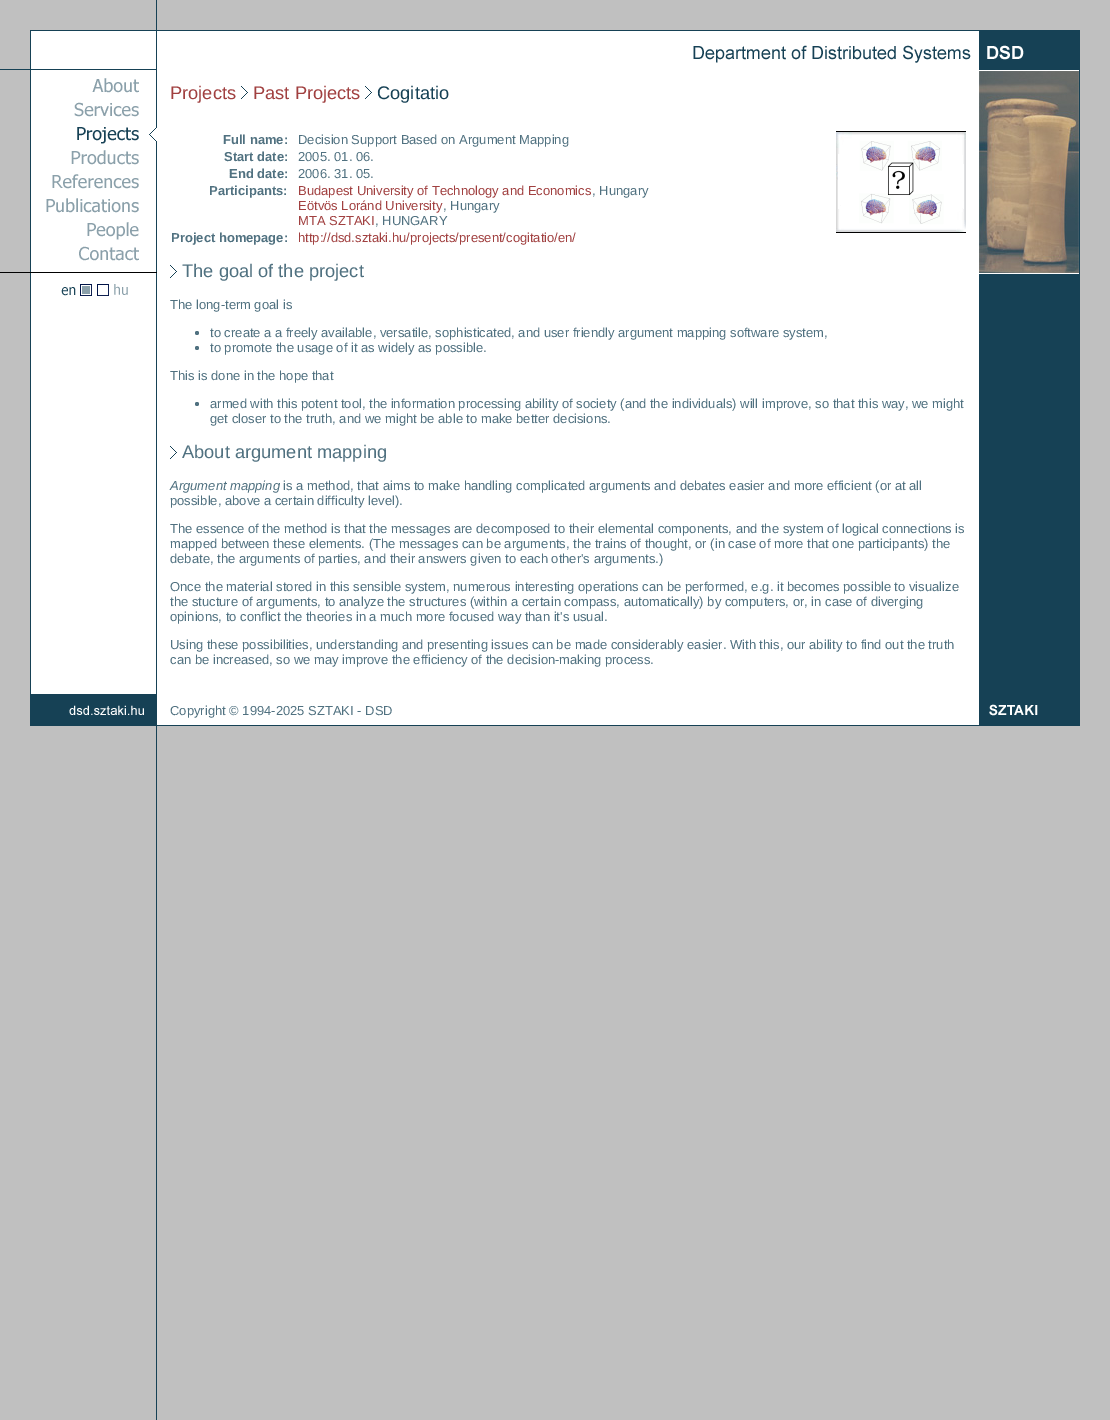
%!PS
<< /PageSize [1110 1420] >> setpagedevice
/rgb { 3 { 255 div 3 1 roll } repeat setrgbcolor } def
/font { [ exch dup neg 0 0 3 -1 roll 0 0 ] selectfont } def
/circle { newpath 0 360 arc closepath } def
/picture { 5 dict begin { /h /w /y /x /name } { exch def } forall
  gsave x y translate w h scale
  w h 8 [w 0 0 h 0 0] name (r) file false 3 colorimage grestore end } def
0 1420 translate 1 -1 scale
4 setmiterlimit
192 192 192 rgb
0 0 1110 1420 rectfill
22 65 85 rgb
156 756 1 664 rectfill
(img/1.rgb) 157 0 953 70 picture
(img/2.rgb) 0 0 157 70 picture
(img/3.rgb) 979 30 131 40 picture
(img/4.rgb) 987 45 37 15 picture
255 255 255 rgb
157 70 822 624 rectfill
(img/5.rgb) 0 70 157 624 picture
(img/6.rgb) 979 70 131 624 picture
(img/7.rgb) 92 78 47 15 picture
(img/8.rgb) 74 102 65 15 picture
(img/9.rgb) 149 128 8 13 picture
(img/10.rgb) 77 127 62 17 picture
(img/11.rgb) 71 150 68 15 picture
(img/12.rgb) 52 174 87 15 picture
(img/13.rgb) 46 198 93 15 picture
(img/14.rgb) 87 222 52 18 picture
(img/15.rgb) 79 246 60 15 picture
0 0 0 rgb
0 272 157 1 rectfill
(img/16.rgb) 61 284 67 12 picture
(img/17.rgb) 693 45 278 18 picture
(img/18.rgb) 241 86 7 13 picture
(img/18.rgb) 365 86 7 13 picture
836 131 130 1 rectfill
836 232 130 1 rectfill
(img/19.rgb) 836 132 130 100 picture
(img/18.rgb) 170 265 7 13 picture
80 113 128 rgb
197 333 2 circle fill
197 348 2 circle fill
197 404 2 circle fill
(img/18.rgb) 170 446 7 13 picture
255 255 255 rgb
979 70 100 1 rectfill
(img/20.rgb) 979 71 100 202 picture
979 273 100 1 rectfill
(img/21.rgb) 157 694 953 62 picture
(img/22.rgb) 0 694 157 62 picture
(img/23.rgb) 69 705 75 10 picture
(img/24.rgb) 979 694 131 32 picture
(img/25.rgb) 989 704 49 12 picture
/LiberationSans-Regular 18.25 font
161 64 64 rgb
170 99 moveto (Projects) show
253 99 moveto (Past Projects) show
22 65 85 rgb
377 99 moveto (Cogitatio) show
/LiberationSans-Bold 13 font
80 113 128 rgb
223 144 moveto (Full name:) show
/LiberationSans-Regular 13 font
298 144 moveto (Decision Support Based on Argument Mapping) show
/LiberationSans-Bold 13 font
224 161 moveto (Start date:) show
/LiberationSans-Regular 13 font
298 161 moveto (2005. 01. 06.) show
/LiberationSans-Bold 13 font
229 178 moveto (End date:) show
/LiberationSans-Regular 13 font
298 178 moveto (2006. 31. 05.) show
/LiberationSans-Bold 13 font
209 195 moveto (Participants:) show
/LiberationSans-Regular 13 font
161 64 64 rgb
298 195 moveto (Budapest University of Technology and Economics) show
80 113 128 rgb
592 195 moveto (, Hungary) show
161 64 64 rgb
298 210 moveto (Eötvös Loránd University) show
80 113 128 rgb
443 210 moveto (, Hungary) show
161 64 64 rgb
298 225 moveto (MTA SZTAKI) show
80 113 128 rgb
375 225 moveto (, HUNGARY) show
/LiberationSans-Bold 13 font
171 242 moveto (Project homepage:) show
/LiberationSans-Regular 13 font
161 64 64 rgb
298 242 moveto (http://dsd.sztaki.hu/projects/present/cogitatio/en/) show
/LiberationSans-Regular 18.25 font
80 113 128 rgb
182 277 moveto (The goal of the project) show
/LiberationSans-Regular 13 font
[
  [(The long-term goal is) 170 309]
  [(to create a a freely available, versatile, sophisticated, and user friendly argument mapping software system,) 210 337]
  [(to promote the usage of it as widely as possible.) 210 352]
  [(This is done in the hope that) 170 380]
  [(armed with this potent tool, the information processing ability of society \(and the individuals\) will improve, so that this way, we might) 210 408]
  [(get closer to the truth, and we might be able to make better decisions.) 210 423]
] { aload pop moveto show } forall
/LiberationSans-Regular 18.25 font
182 458 moveto (About argument mapping) show
/LiberationSans-Italic 13 font
170 490 moveto (Argument mapping) show
/LiberationSans-Regular 13 font
[
  [(is a method, that aims to make handling complicated arguments and debates easier and more efficient \(or at all) 283 490]
  [(possible, above a certain difficulty level\).) 170 505]
  [(The essence of the method is that the messages are decomposed to their elemental components, and the system of logical connections is) 170 533]
  [(mapped between these elements. \(The messages can be arguments, the trains of thought, or \(in case of more that one participants\) the) 170 548]
  [(debate, the arguments of parties, and their answers given to each other's arguments.\)) 170 563]
  [(Once the material stored in this sensible system, numerous interesting operations can be performed, e.g. it becomes possible to visualize) 170 591]
  [(the stucture of arguments, to analyze the structures \(within a certain compass, automatically\) by computers, or, in case of diverging) 170 606]
  [(opinions, to conflict the theories in a much more focused way than it's usual.) 170 621]
  [(Using these possibilities, understanding and presenting issues can be made considerably easier. With this, our ability to find out the truth) 170 649]
  [(can be increased, so we may improve the efficiency of the decision-making process.) 170 664]
  [(Copyright © 1994-2025 SZTAKI - DSD) 170 715]
] { aload pop moveto show } forall
showpage
